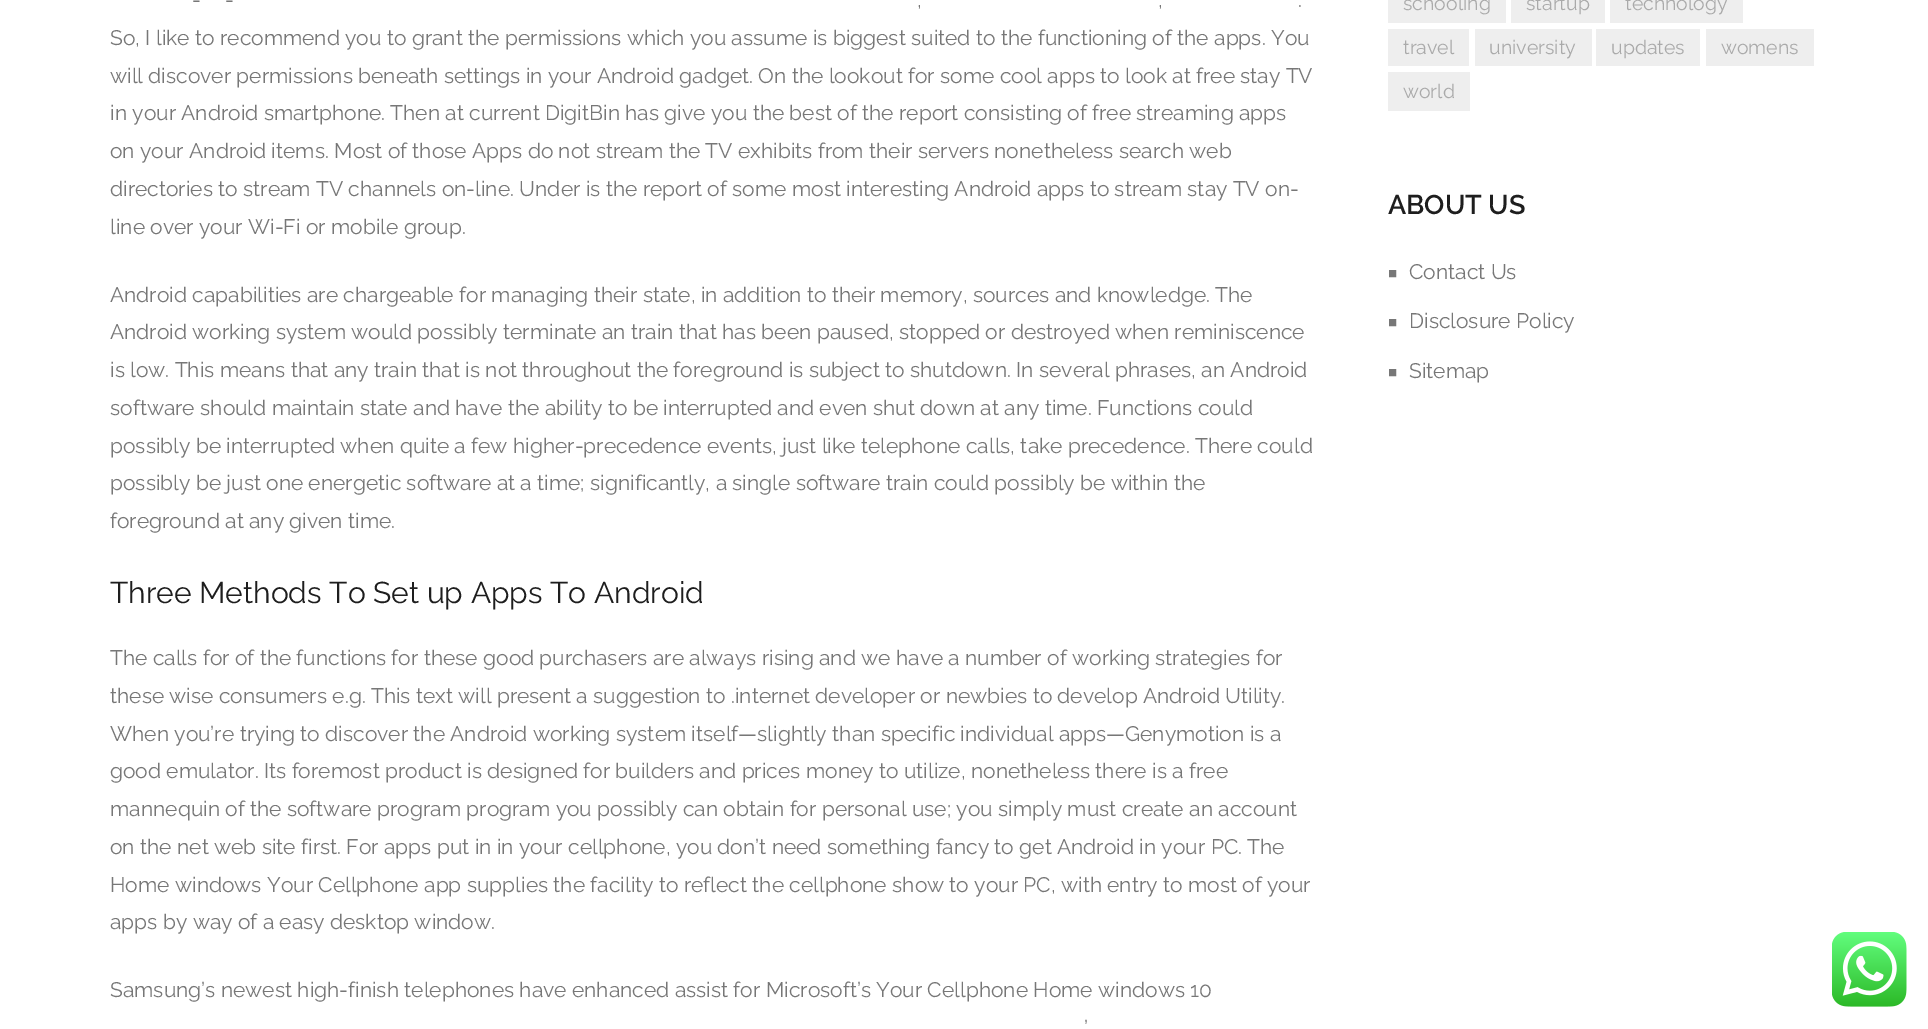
%!PS
<< /PageSize [1928 1029] >> setpagedevice
/rgb { 3 { 255 div 3 1 roll } repeat setrgbcolor } def
/font { [ exch dup neg 0 0 3 -1 roll 0 0 ] selectfont } def
/picture { 5 dict begin { /h /w /y /x /name } { exch def } forall
  gsave x y translate w h scale
  w h 8 [w 0 0 h 0 0] name (r) file false 3 colorimage grestore end } def
0 1029 translate 1 -1 scale
4 setmiterlimit
255 255 255 rgb
0 0 1928 1029 rectfill
[
  [1388 0 118 23 238 238 238]
  [1511 0 94 23 238 238 238]
  [1610 0 133 23 238 238 238]
  [1388 29 81 37 238 238 238]
  [1475 29 117 37 238 238 238]
  [1596 29 104 37 238 238 238]
  [1706 29 108 37 238 238 238]
  [1388 72 82 39 238 238 238]
] { aload pop rgb rectfill } forall
(img/1.rgb) 1832 932 75 75 picture
/Raleway-Regular 21 font
119 119 119 rgb
[
  [(-) 192 7]
  [(-) 225 7]
  [(,) 917 7]
  [(,) 1158 7]
  [(.) 1298 7]
  [(So, I like to recommend you to grant the permissions which you assume is biggest suited to the functioning of the apps. You) 110 45]
  [(will discover permissions beneath settings in your Android gadget. On the lookout for some cool apps to look at free stay TV) 110 83]
  [(in your Android smartphone. Then at current DigitBin has give you the best of the report consisting of free streaming apps) 110 120]
  [(on your Android items. Most of those Apps do not stream the TV exhibits from their servers nonetheless search web) 110 158]
  [(directories to stream TV channels on-line. Under is the report of some most interesting Android apps to stream stay TV on-) 110 196]
  [(line over your Wi-Fi or mobile group.) 110 234]
  [(Android capabilities are chargeable for managing their state, in addition to their memory, sources and knowledge. The) 110 302]
  [(Android working system would possibly terminate an train that has been paused, stopped or destroyed when reminiscence) 110 339]
  [(is low. This means that any train that is not throughout the foreground is subject to shutdown. In several phrases, an Android) 110 377]
  [(software should maintain state and have the ability to be interrupted and even shut down at any time. Functions could) 110 415]
  [(possibly be interrupted when quite a few higher-precedence events, just like telephone calls, take precedence. There could) 110 453]
  [(possibly be just one energetic software at a time; significantly, a single software train could possibly be within the) 110 490]
  [(foreground at any given time.) 110 528]
] { aload pop moveto show } forall
/Raleway-Regular 30 font
30 30 30 rgb
110 603 moveto (Three Methods To Set up Apps To Android) show
/Raleway-Regular 21 font
119 119 119 rgb
[
  [(The calls for of the functions for these good purchasers are always rising and we have a number of working strategies for) 110 665]
  [(these wise consumers e.g. This text will present a suggestion to .internet developer or newbies to develop Android Utility.) 110 703]
  [(When you’re trying to discover the Android working system itself—slightly than specific individual apps—Genymotion is a) 110 741]
  [(good emulator. Its foremost product is designed for builders and prices money to utilize, nonetheless there is a free) 110 778]
  [(mannequin of the software program program you possibly can obtain for personal use; you simply must create an account) 110 816]
  [(on the net web site first. For apps put in in your cellphone, you don’t need something fancy to get Android in your PC. The) 110 854]
  [(Home windows Your Cellphone app supplies the facility to reflect the cellphone show to your PC, with entry to most of your) 110 892]
  [(apps by way of a easy desktop window.) 110 929]
  [(Samsung’s newest high-finish telephones have enhanced assist for Microsoft’s Your Cellphone Home windows 10) 110 997]
  [(’) 1084 1035]
] { aload pop moveto show } forall
/Raleway-Regular 19.5 font
170 170 170 rgb
[
  [(schooling) 1403 10]
  [(startup) 1526 10]
  [(technology) 1625 10]
  [(travel) 1403 54]
  [(university) 1489 54]
  [(updates) 1611 54]
  [(womens) 1721 54]
  [(world) 1403 98]
] { aload pop moveto show } forall
/Raleway-SemiBold 27 font
30 30 30 rgb
1388 214 moveto (ABOUT US) show
/LiberationSans-Regular 15 font
119 119 119 rgb
1388 278 moveto (■) show
/Raleway-Regular 21 font
1409 279 moveto (Contact Us) show
/LiberationSans-Regular 15 font
1388 327 moveto (■) show
/Raleway-Regular 21 font
1409 328 moveto (Disclosure Policy) show
/LiberationSans-Regular 15 font
1388 377 moveto (■) show
/Raleway-Regular 21 font
1409 378 moveto (Sitemap) show
showpage
